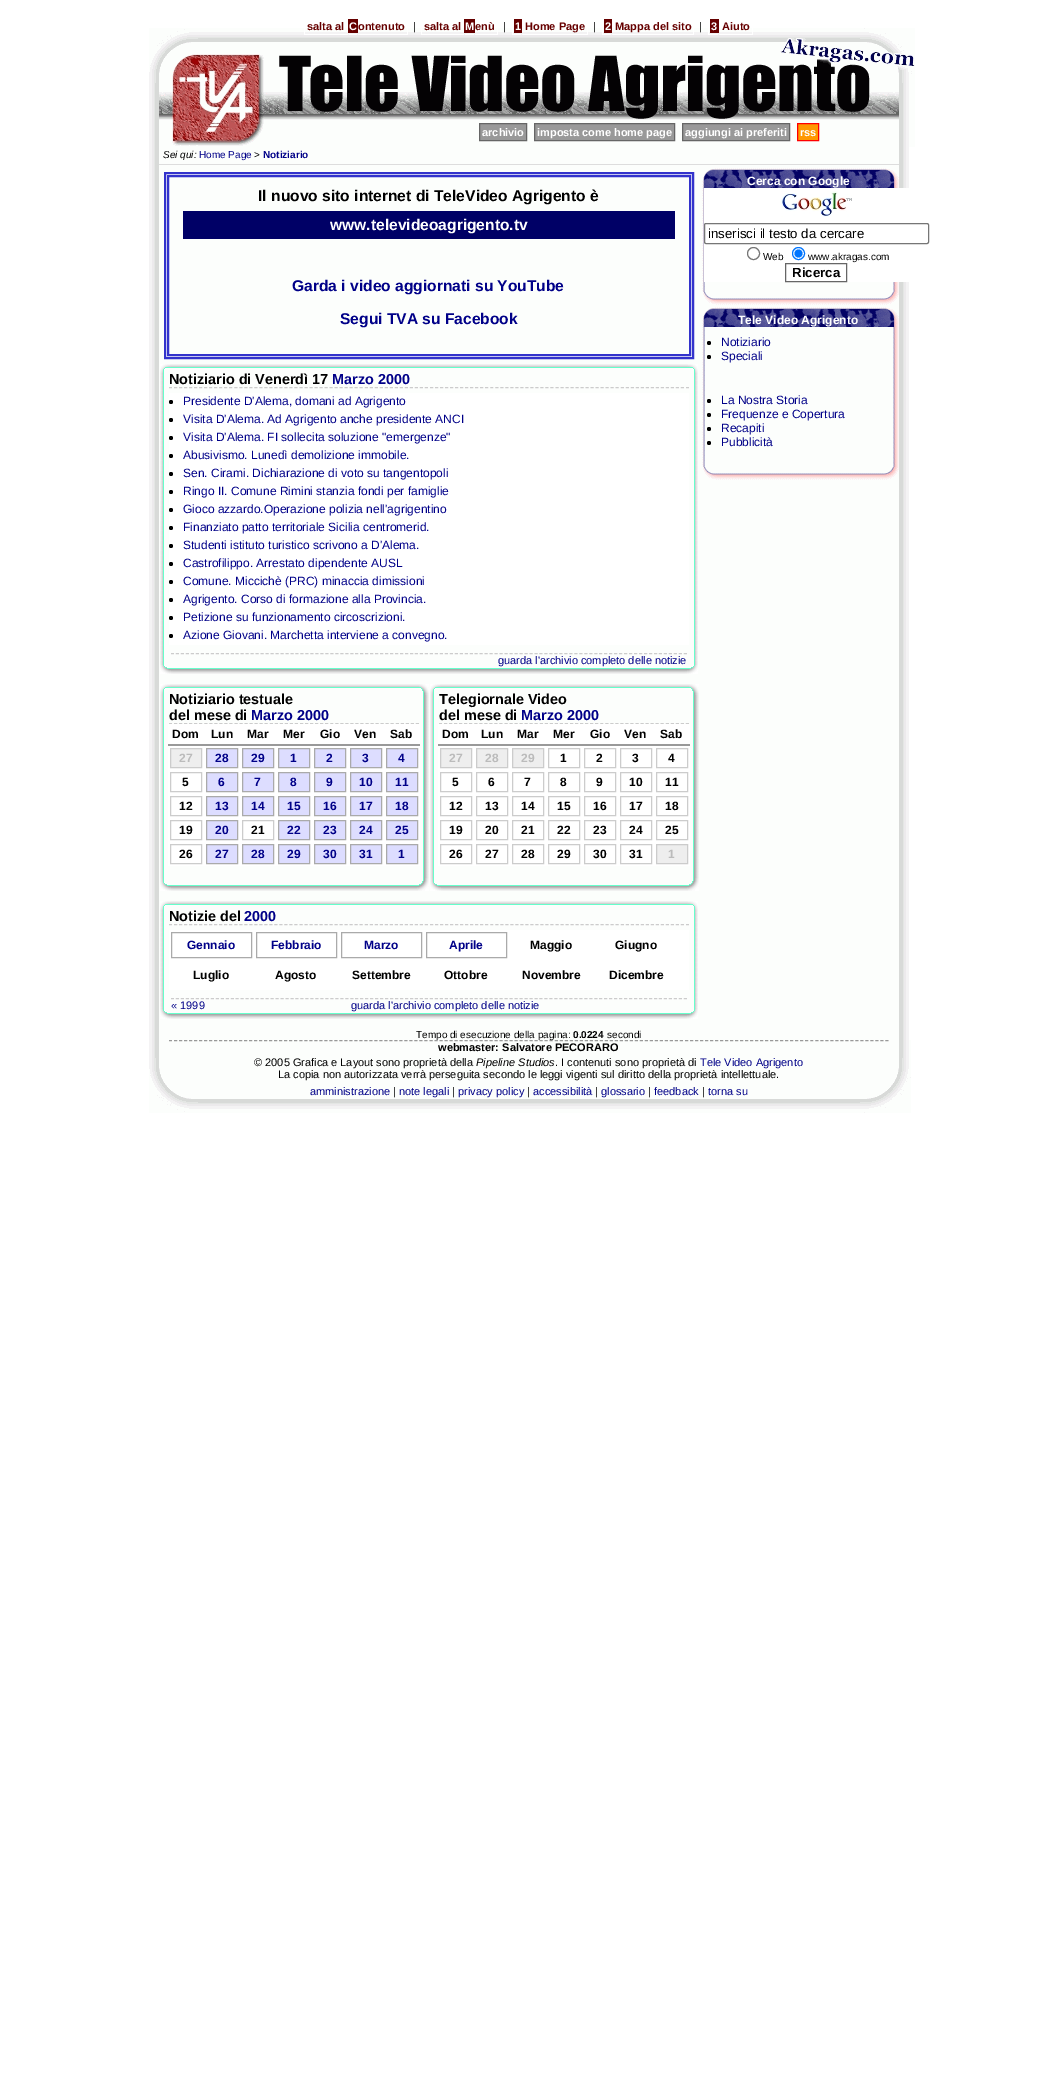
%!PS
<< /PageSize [1057 2095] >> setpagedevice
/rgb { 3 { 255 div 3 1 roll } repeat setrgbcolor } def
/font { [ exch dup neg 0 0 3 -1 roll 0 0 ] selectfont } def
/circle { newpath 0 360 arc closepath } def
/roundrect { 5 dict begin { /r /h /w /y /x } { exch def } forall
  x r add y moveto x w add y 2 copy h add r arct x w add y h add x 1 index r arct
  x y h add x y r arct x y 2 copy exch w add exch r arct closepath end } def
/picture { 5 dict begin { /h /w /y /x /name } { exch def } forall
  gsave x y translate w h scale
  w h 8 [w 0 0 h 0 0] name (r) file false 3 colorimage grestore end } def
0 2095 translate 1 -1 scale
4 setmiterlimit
255 255 255 rgb
0 0 1057 2095 rectfill
(img/1.rgb) 149 28 766 119 picture
[
  [304 34 44 1 255 255 255]
  [304 28 1 7 255 255 255]
  [349 34 8 1 255 255 255]
  [348 19 10 14 102 0 0]
  [407 28 1 7 255 255 255]
  [358 34 50 1 255 255 255]
  [421 34 43 1 255 255 255]
  [421 28 1 7 255 255 255]
  [465 34 9 1 255 255 255]
  [464 19 11 14 102 0 0]
  [497 28 1 7 255 255 255]
  [475 34 23 1 255 255 255]
  [512 34 9 1 255 255 255]
  [512 28 1 7 255 255 255]
  [514 19 8 14 102 0 0]
  [587 28 1 7 255 255 255]
  [522 34 66 1 255 255 255]
  [602 34 9 1 255 255 255]
  [602 28 1 7 255 255 255]
  [604 19 8 14 102 0 0]
  [693 28 1 7 255 255 255]
  [612 34 82 1 255 255 255]
  [708 34 10 1 255 255 255]
  [708 28 1 7 255 255 255]
  [710 19 9 14 102 0 0]
  [752 28 1 7 255 255 255]
  [719 34 34 1 255 255 255]
] { aload pop rgb rectfill } forall
153 153 153 rgb
479.5 123.5 moveto 526.5 123.5 lineto 526.5 140.5 lineto 479.5 140.5 lineto closepath gsave fill grestore
102 102 102 rgb
stroke
153 153 153 rgb
534.5 123.5 moveto 674.5 123.5 lineto 674.5 140.5 lineto 534.5 140.5 lineto closepath gsave fill grestore
102 102 102 rgb
stroke
153 153 153 rgb
682.5 123.5 moveto 789.5 123.5 lineto 789.5 140.5 lineto 682.5 140.5 lineto closepath gsave fill grestore
102 102 102 rgb
stroke
255 153 0 rgb
797.5 123.5 moveto 818.5 123.5 lineto 818.5 140.5 lineto 797.5 140.5 lineto closepath gsave fill grestore
255 0 0 rgb
stroke
(img/2.rgb) 149 147 760 893 picture
221 221 221 rgb
159 164 740 1 rectfill
51 51 204 rgb
2 setlinewidth
165 173 528 185 rectstroke
168 176 522 179 rectstroke
0 0 102 rgb
183 211 492 28 rectfill
(img/3.rgb) 160 373 538 292 picture
(img/4.rgb) 160 364 538 9 picture
204 204 204 rgb
1 setlinewidth
[3 2.02] 0 setdash
169 387.5 moveto 689 387.5 lineto stroke
255 255 255 rgb
169 393 520 252 rectfill
0 0 0 rgb
171 402 2 circle fill
171 420 2 circle fill
171 438 2 circle fill
171 456 2 circle fill
171 474 2 circle fill
171 492 2 circle fill
171 510 2 circle fill
171 528 2 circle fill
171 546 2 circle fill
171 564 2 circle fill
171 582 2 circle fill
171 600 2 circle fill
171 618 2 circle fill
171 636 2 circle fill
(img/5.rgb) 160 665 538 9 picture
204 204 204 rgb
[3 1.98] 0 setdash
171 653.5 moveto 687 653.5 lineto stroke
(img/6.rgb) 160 695 269 183 picture
(img/7.rgb) 160 684 269 11 picture
[3 2.04] 0 setdash
169 723.5 moveto 419 723.5 lineto stroke
255 255 255 rgb
168 724 252 142 rectfill
153 153 153 rgb
168 744 252 2 rectfill
238 238 238 rgb
170.5 748.5 moveto 201.5 748.5 lineto 201.5 767.5 lineto 170.5 767.5 lineto closepath gsave fill grestore
204 204 204 rgb
[] 0 setdash
stroke
221 221 255 rgb
206.5 748.5 moveto 237.5 748.5 lineto 237.5 767.5 lineto 206.5 767.5 lineto closepath gsave fill grestore
170 170 170 rgb
stroke
221 221 255 rgb
242.5 748.5 moveto 273.5 748.5 lineto 273.5 767.5 lineto 242.5 767.5 lineto closepath gsave fill grestore
170 170 170 rgb
stroke
221 221 255 rgb
278.5 748.5 moveto 309.5 748.5 lineto 309.5 767.5 lineto 278.5 767.5 lineto closepath gsave fill grestore
170 170 170 rgb
stroke
221 221 255 rgb
314.5 748.5 moveto 345.5 748.5 lineto 345.5 767.5 lineto 314.5 767.5 lineto closepath gsave fill grestore
170 170 170 rgb
stroke
221 221 255 rgb
350.5 748.5 moveto 381.5 748.5 lineto 381.5 767.5 lineto 350.5 767.5 lineto closepath gsave fill grestore
170 170 170 rgb
stroke
221 221 255 rgb
386.5 748.5 moveto 417.5 748.5 lineto 417.5 767.5 lineto 386.5 767.5 lineto closepath gsave fill grestore
170 170 170 rgb
stroke
204 204 204 rgb
170.5 772.5 31 19 rectstroke
221 221 255 rgb
206.5 772.5 moveto 237.5 772.5 lineto 237.5 791.5 lineto 206.5 791.5 lineto closepath gsave fill grestore
170 170 170 rgb
stroke
221 221 255 rgb
242.5 772.5 moveto 273.5 772.5 lineto 273.5 791.5 lineto 242.5 791.5 lineto closepath gsave fill grestore
170 170 170 rgb
stroke
221 221 255 rgb
278.5 772.5 moveto 309.5 772.5 lineto 309.5 791.5 lineto 278.5 791.5 lineto closepath gsave fill grestore
170 170 170 rgb
stroke
221 221 255 rgb
314.5 772.5 moveto 345.5 772.5 lineto 345.5 791.5 lineto 314.5 791.5 lineto closepath gsave fill grestore
170 170 170 rgb
stroke
221 221 255 rgb
350.5 772.5 moveto 381.5 772.5 lineto 381.5 791.5 lineto 350.5 791.5 lineto closepath gsave fill grestore
170 170 170 rgb
stroke
221 221 255 rgb
386.5 772.5 moveto 417.5 772.5 lineto 417.5 791.5 lineto 386.5 791.5 lineto closepath gsave fill grestore
170 170 170 rgb
stroke
204 204 204 rgb
170.5 796.5 31 19 rectstroke
221 221 255 rgb
206.5 796.5 moveto 237.5 796.5 lineto 237.5 815.5 lineto 206.5 815.5 lineto closepath gsave fill grestore
170 170 170 rgb
stroke
221 221 255 rgb
242.5 796.5 moveto 273.5 796.5 lineto 273.5 815.5 lineto 242.5 815.5 lineto closepath gsave fill grestore
170 170 170 rgb
stroke
221 221 255 rgb
278.5 796.5 moveto 309.5 796.5 lineto 309.5 815.5 lineto 278.5 815.5 lineto closepath gsave fill grestore
170 170 170 rgb
stroke
221 221 255 rgb
314.5 796.5 moveto 345.5 796.5 lineto 345.5 815.5 lineto 314.5 815.5 lineto closepath gsave fill grestore
170 170 170 rgb
stroke
221 221 255 rgb
350.5 796.5 moveto 381.5 796.5 lineto 381.5 815.5 lineto 350.5 815.5 lineto closepath gsave fill grestore
170 170 170 rgb
stroke
221 221 255 rgb
386.5 796.5 moveto 417.5 796.5 lineto 417.5 815.5 lineto 386.5 815.5 lineto closepath gsave fill grestore
170 170 170 rgb
stroke
204 204 204 rgb
170.5 820.5 31 19 rectstroke
221 221 255 rgb
206.5 820.5 moveto 237.5 820.5 lineto 237.5 839.5 lineto 206.5 839.5 lineto closepath gsave fill grestore
170 170 170 rgb
stroke
204 204 204 rgb
242.5 820.5 31 19 rectstroke
221 221 255 rgb
278.5 820.5 moveto 309.5 820.5 lineto 309.5 839.5 lineto 278.5 839.5 lineto closepath gsave fill grestore
170 170 170 rgb
stroke
221 221 255 rgb
314.5 820.5 moveto 345.5 820.5 lineto 345.5 839.5 lineto 314.5 839.5 lineto closepath gsave fill grestore
170 170 170 rgb
stroke
221 221 255 rgb
350.5 820.5 moveto 381.5 820.5 lineto 381.5 839.5 lineto 350.5 839.5 lineto closepath gsave fill grestore
170 170 170 rgb
stroke
221 221 255 rgb
386.5 820.5 moveto 417.5 820.5 lineto 417.5 839.5 lineto 386.5 839.5 lineto closepath gsave fill grestore
170 170 170 rgb
stroke
204 204 204 rgb
170.5 844.5 31 19 rectstroke
221 221 255 rgb
206.5 844.5 moveto 237.5 844.5 lineto 237.5 863.5 lineto 206.5 863.5 lineto closepath gsave fill grestore
170 170 170 rgb
stroke
221 221 255 rgb
242.5 844.5 moveto 273.5 844.5 lineto 273.5 863.5 lineto 242.5 863.5 lineto closepath gsave fill grestore
170 170 170 rgb
stroke
221 221 255 rgb
278.5 844.5 moveto 309.5 844.5 lineto 309.5 863.5 lineto 278.5 863.5 lineto closepath gsave fill grestore
170 170 170 rgb
stroke
221 221 255 rgb
314.5 844.5 moveto 345.5 844.5 lineto 345.5 863.5 lineto 314.5 863.5 lineto closepath gsave fill grestore
170 170 170 rgb
stroke
221 221 255 rgb
350.5 844.5 moveto 381.5 844.5 lineto 381.5 863.5 lineto 350.5 863.5 lineto closepath gsave fill grestore
170 170 170 rgb
stroke
221 221 255 rgb
386.5 844.5 moveto 417.5 844.5 lineto 417.5 863.5 lineto 386.5 863.5 lineto closepath gsave fill grestore
170 170 170 rgb
stroke
(img/8.rgb) 160 878 269 13 picture
(img/6.rgb) 430 695 269 183 picture
(img/7.rgb) 430 684 269 11 picture
204 204 204 rgb
[3 2.04] 0 setdash
439 723.5 moveto 689 723.5 lineto stroke
255 255 255 rgb
438 724 252 142 rectfill
153 153 153 rgb
438 744 252 2 rectfill
238 238 238 rgb
440.5 748.5 moveto 471.5 748.5 lineto 471.5 767.5 lineto 440.5 767.5 lineto closepath gsave fill grestore
204 204 204 rgb
[] 0 setdash
stroke
238 238 238 rgb
476.5 748.5 moveto 507.5 748.5 lineto 507.5 767.5 lineto 476.5 767.5 lineto closepath gsave fill grestore
204 204 204 rgb
stroke
238 238 238 rgb
512.5 748.5 moveto 543.5 748.5 lineto 543.5 767.5 lineto 512.5 767.5 lineto closepath gsave fill grestore
204 204 204 rgb
stroke
548.5 748.5 31 19 rectstroke
584.5 748.5 31 19 rectstroke
620.5 748.5 31 19 rectstroke
656.5 748.5 31 19 rectstroke
440.5 772.5 31 19 rectstroke
476.5 772.5 31 19 rectstroke
512.5 772.5 31 19 rectstroke
548.5 772.5 31 19 rectstroke
584.5 772.5 31 19 rectstroke
620.5 772.5 31 19 rectstroke
656.5 772.5 31 19 rectstroke
440.5 796.5 31 19 rectstroke
476.5 796.5 31 19 rectstroke
512.5 796.5 31 19 rectstroke
548.5 796.5 31 19 rectstroke
584.5 796.5 31 19 rectstroke
620.5 796.5 31 19 rectstroke
656.5 796.5 31 19 rectstroke
440.5 820.5 31 19 rectstroke
476.5 820.5 31 19 rectstroke
512.5 820.5 31 19 rectstroke
548.5 820.5 31 19 rectstroke
584.5 820.5 31 19 rectstroke
620.5 820.5 31 19 rectstroke
656.5 820.5 31 19 rectstroke
440.5 844.5 31 19 rectstroke
476.5 844.5 31 19 rectstroke
512.5 844.5 31 19 rectstroke
548.5 844.5 31 19 rectstroke
584.5 844.5 31 19 rectstroke
620.5 844.5 31 19 rectstroke
238 238 238 rgb
656.5 844.5 moveto 687.5 844.5 lineto 687.5 863.5 lineto 656.5 863.5 lineto closepath gsave fill grestore
204 204 204 rgb
stroke
(img/8.rgb) 430 878 269 13 picture
(img/9.rgb) 160 910 538 99 picture
(img/4.rgb) 160 901 538 9 picture
[3 2.02] 0 setdash
169 924.5 moveto 689 924.5 lineto stroke
255 255 255 rgb
169 930 520 60 rectfill
170 170 170 rgb
[] 0 setdash
171.5 932.5 80 25 rectstroke
256.5 932.5 80 25 rectstroke
341.5 932.5 80 25 rectstroke
426.5 932.5 80 25 rectstroke
(img/10.rgb) 160 1009 538 10 picture
204 204 204 rgb
[3 1.98] 0 setdash
171 998.5 moveto 687 998.5 lineto stroke
(img/11.rgb) 702 188 197 104 picture
(img/12.rgb) 702 167 197 21 picture
255 255 255 rgb
704 188 205 94 rectfill
(img/13.rgb) 781 191 71 26 picture
118 118 118 rgb
[] 0 setdash
704.5 223.5 224 20 1.5 roundrect stroke
753.5 253.5 6 circle stroke
0 117 255 rgb
798.5 253.5 6 circle stroke
798.5 253.5 4 circle fill
102 102 102 rgb
785.5 263.5 61 18 rectstroke
(img/14.rgb) 702 292 197 14 picture
(img/15.rgb) 702 327 197 140 picture
(img/12.rgb) 702 306 197 21 picture
0 0 0 rgb
709 343 2 circle fill
709 357 2 circle fill
709 401 2 circle fill
709 415 2 circle fill
709 429 2 circle fill
709 443 2 circle fill
(img/14.rgb) 702 467 197 14 picture
(img/16.rgb) 149 1040 762 73 picture
153 153 153 rgb
[3 2.01] 0 setdash
169 1040.5 moveto 889 1040.5 lineto stroke
/LiberationSans-Bold 11 font
102 0 0 rgb
307 30 moveto (salta al) show
255 255 255 rgb
349 30 moveto (C) show
102 0 0 rgb
358 30 moveto (ontenuto) show
/LiberationSans-Regular 11 font
0 0 0 rgb
413 30 moveto (|) show
/LiberationSans-Bold 11 font
102 0 0 rgb
424 30 moveto (salta al) show
255 255 255 rgb
465 30 moveto (M) show
102 0 0 rgb
475 30 moveto (enù) show
/LiberationSans-Regular 11 font
0 0 0 rgb
503 30 moveto (|) show
/LiberationSans-Bold 11 font
255 255 255 rgb
515 30 moveto (1) show
102 0 0 rgb
525 30 moveto (Home Page) show
/LiberationSans-Regular 11 font
0 0 0 rgb
593 30 moveto (|) show
/LiberationSans-Bold 11 font
255 255 255 rgb
605 30 moveto (2) show
102 0 0 rgb
615 30 moveto (Mappa del sito) show
/LiberationSans-Regular 11 font
0 0 0 rgb
699 30 moveto (|) show
/LiberationSans-Bold 11 font
255 255 255 rgb
711 30 moveto (3) show
102 0 0 rgb
722 30 moveto (Aiuto) show
255 255 255 rgb
[
  [(archivio) 482 136]
  [(imposta come home page) 537 136]
  [(aggiungi ai preferiti) 685 136]
  [(rss) 800 136]
] { aload pop moveto show } forall
/LiberationSans-Italic 10 font
0 0 0 rgb
163 158 moveto (Sei qui:) show
/LiberationSans-Regular 10 font
0 0 136 rgb
199 158 moveto (Home Page) show
0 0 0 rgb
254 158 moveto (>) show
/LiberationSans-Bold 10 font
0 0 136 rgb
263 158 moveto (Notiziario) show
/LiberationSans-Bold 15.6 font
0 0 0 rgb
258 201 moveto (Il nuovo sito internet di TeleVideo Agrigento è) show
255 255 255 rgb
330 230 moveto (www.televideoagrigento.tv) show
0 0 136 rgb
292 291 moveto (Garda i video aggiornati su YouTube) show
340 324 moveto (Segui TVA su Facebook) show
/LiberationSans-Bold 14.4 font
0 0 0 rgb
169 384 moveto (Notiziario di Venerdì 17) show
0 0 136 rgb
332 384 moveto (Marzo 2000) show
/LiberationSans-Regular 12 font
[
  [(Presidente D'Alema, domani ad Agrigento) 183 405]
  [(Visita D'Alema. Ad Agrigento anche presidente ANCI) 183 423]
  [(Visita D'Alema. FI sollecita soluzione "emergenze") 183 441]
  [(Abusivismo. Lunedì demolizione immobile.) 183 459]
  [(Sen. Cirami. Dichiarazione di voto su tangentopoli) 183 477]
  [(Ringo II. Comune Rimini stanzia fondi per famiglie) 183 495]
  [(Gioco azzardo.Operazione polizia nell'agrigentino) 183 513]
  [(Finanziato patto territoriale Sicilia centromerid.) 183 531]
  [(Studenti istituto turistico scrivono a D'Alema.) 183 549]
  [(Castrofilippo. Arrestato dipendente AUSL) 183 567]
  [(Comune. Miccichè \(PRC\) minaccia dimissioni) 183 585]
  [(Agrigento. Corso di formazione alla Provincia.) 183 603]
  [(Petizione su funzionamento circoscrizioni.) 183 621]
  [(Azione Giovani. Marchetta interviene a convegno.) 183 639]
] { aload pop moveto show } forall
/LiberationSans-Regular 11 font
498 664 moveto (guarda l'archivio completo delle notizie) show
/LiberationSans-Bold 14.4 font
0 0 0 rgb
169 704 moveto (Notiziario testuale) show
169 720 moveto (del mese di) show
0 0 136 rgb
251 720 moveto (Marzo 2000) show
/LiberationSans-Bold 12 font
0 0 0 rgb
[
  [(Dom) 172 738]
  [(Lun) 211 738]
  [(Mar) 247 738]
  [(Mer) 283 738]
  [(Gio) 320 738]
  [(Ven) 354 738]
  [(Sab) 390 738]
] { aload pop moveto show } forall
187 187 187 rgb
179 762 moveto (27) show
0 0 136 rgb
[
  [(28) 215 762]
  [(29) 251 762]
  [(1) 290 762]
  [(2) 326 762]
  [(3) 362 762]
  [(4) 398 762]
] { aload pop moveto show } forall
0 0 0 rgb
182 786 moveto (5) show
0 0 136 rgb
[
  [(6) 218 786]
  [(7) 254 786]
  [(8) 290 786]
  [(9) 326 786]
  [(10) 359 786]
  [(11) 395 786]
] { aload pop moveto show } forall
0 0 0 rgb
179 810 moveto (12) show
0 0 136 rgb
[
  [(13) 215 810]
  [(14) 251 810]
  [(15) 287 810]
  [(16) 323 810]
  [(17) 359 810]
  [(18) 395 810]
] { aload pop moveto show } forall
0 0 0 rgb
179 834 moveto (19) show
0 0 136 rgb
215 834 moveto (20) show
0 0 0 rgb
251 834 moveto (21) show
0 0 136 rgb
[
  [(22) 287 834]
  [(23) 323 834]
  [(24) 359 834]
  [(25) 395 834]
] { aload pop moveto show } forall
0 0 0 rgb
179 858 moveto (26) show
0 0 136 rgb
[
  [(27) 215 858]
  [(28) 251 858]
  [(29) 287 858]
  [(30) 323 858]
  [(31) 359 858]
  [(1) 398 858]
] { aload pop moveto show } forall
/LiberationSans-Bold 14.4 font
0 0 0 rgb
439 704 moveto (Telegiornale Video) show
439 720 moveto (del mese di) show
0 0 136 rgb
521 720 moveto (Marzo 2000) show
/LiberationSans-Bold 12 font
0 0 0 rgb
[
  [(Dom) 442 738]
  [(Lun) 481 738]
  [(Mar) 517 738]
  [(Mer) 553 738]
  [(Gio) 590 738]
  [(Ven) 624 738]
  [(Sab) 660 738]
] { aload pop moveto show } forall
187 187 187 rgb
[
  [(27) 449 762]
  [(28) 485 762]
  [(29) 521 762]
] { aload pop moveto show } forall
0 0 0 rgb
[
  [(1) 560 762]
  [(2) 596 762]
  [(3) 632 762]
  [(4) 668 762]
  [(5) 452 786]
  [(6) 488 786]
  [(7) 524 786]
  [(8) 560 786]
  [(9) 596 786]
  [(10) 629 786]
  [(11) 665 786]
  [(12) 449 810]
  [(13) 485 810]
  [(14) 521 810]
  [(15) 557 810]
  [(16) 593 810]
  [(17) 629 810]
  [(18) 665 810]
  [(19) 449 834]
  [(20) 485 834]
  [(21) 521 834]
  [(22) 557 834]
  [(23) 593 834]
  [(24) 629 834]
  [(25) 665 834]
  [(26) 449 858]
  [(27) 485 858]
  [(28) 521 858]
  [(29) 557 858]
  [(30) 593 858]
  [(31) 629 858]
] { aload pop moveto show } forall
187 187 187 rgb
668 858 moveto (1) show
/LiberationSans-Bold 14.4 font
0 0 0 rgb
169 921 moveto (Notizie del) show
0 0 136 rgb
244 921 moveto (2000) show
/LiberationSans-Bold 12 font
[
  [(Gennaio) 187 949]
  [(Febbraio) 271 949]
  [(Marzo) 364 949]
  [(Aprile) 449 949]
] { aload pop moveto show } forall
0 0 0 rgb
[
  [(Maggio) 530 949]
  [(Giugno) 615 949]
  [(Luglio) 193 979]
  [(Agosto) 275 979]
  [(Settembre) 352 979]
  [(Ottobre) 444 979]
  [(Novembre) 522 979]
  [(Dicembre) 609 979]
] { aload pop moveto show } forall
/LiberationSans-Regular 11 font
0 0 136 rgb
171 1009 moveto (« 1999) show
351 1009 moveto (guarda l'archivio completo delle notizie) show
/LiberationSans-Bold 12 font
255 255 255 rgb
747 185 moveto (Cerca con Google) show
/LiberationSans-Regular 13.25 font
0 0 0 rgb
708 238 moveto (inserisci il testo da cercare) show
/LiberationSans-Regular 10 font
763 260 moveto (Web) show
808 260 moveto (www.akragas.com) show
/LiberationSans-Bold 13.25 font
792 277 moveto (Ricerca) show
/LiberationSans-Bold 12 font
255 255 255 rgb
738 324 moveto (Tele Video Agrigento) show
/LiberationSans-Regular 12 font
0 0 136 rgb
[
  [(Notiziario) 721 346]
  [(Speciali) 721 360]
  [(La Nostra Storia) 721 404]
  [(Frequenze e Copertura) 721 418]
  [(Recapiti) 721 432]
  [(Pubblicità) 721 446]
] { aload pop moveto show } forall
/LiberationSans-Regular 10 font
0 0 0 rgb
416 1038 moveto (Tempo di esecuzione della pagina:) show
/LiberationSans-Bold 10 font
573 1038 moveto (0.0224) show
/LiberationSans-Regular 10 font
607 1038 moveto (secondi) show
/LiberationSans-Bold 11 font
438 1051 moveto (webmaster: Salvatore PECORARO) show
/LiberationSans-Regular 11 font
254 1066 moveto (© 2005 Grafica e Layout sono proprietà della) show
/LiberationSans-Italic 11 font
476 1066 moveto (Pipeline Studios) show
/LiberationSans-Regular 11 font
555 1066 moveto (. I contenuti sono proprietà di) show
0 0 136 rgb
700 1066 moveto (Tele Video Agrigento) show
0 0 0 rgb
278 1078 moveto (La copia non autorizzata verrà perseguita secondo le leggi vigenti sul diritto della proprietà intellettuale.) show
0 0 136 rgb
310 1095 moveto (amministrazione) show
0 0 0 rgb
393 1095 moveto (|) show
0 0 136 rgb
399 1095 moveto (note legali) show
0 0 0 rgb
452 1095 moveto (|) show
0 0 136 rgb
458 1095 moveto (privacy policy) show
0 0 0 rgb
527 1095 moveto (|) show
0 0 136 rgb
533 1095 moveto (accessibilità) show
0 0 0 rgb
595 1095 moveto (|) show
0 0 136 rgb
601 1095 moveto (glossario) show
0 0 0 rgb
648 1095 moveto (|) show
0 0 136 rgb
654 1095 moveto (feedback) show
0 0 0 rgb
702 1095 moveto (|) show
0 0 136 rgb
708 1095 moveto (torna su) show
showpage
